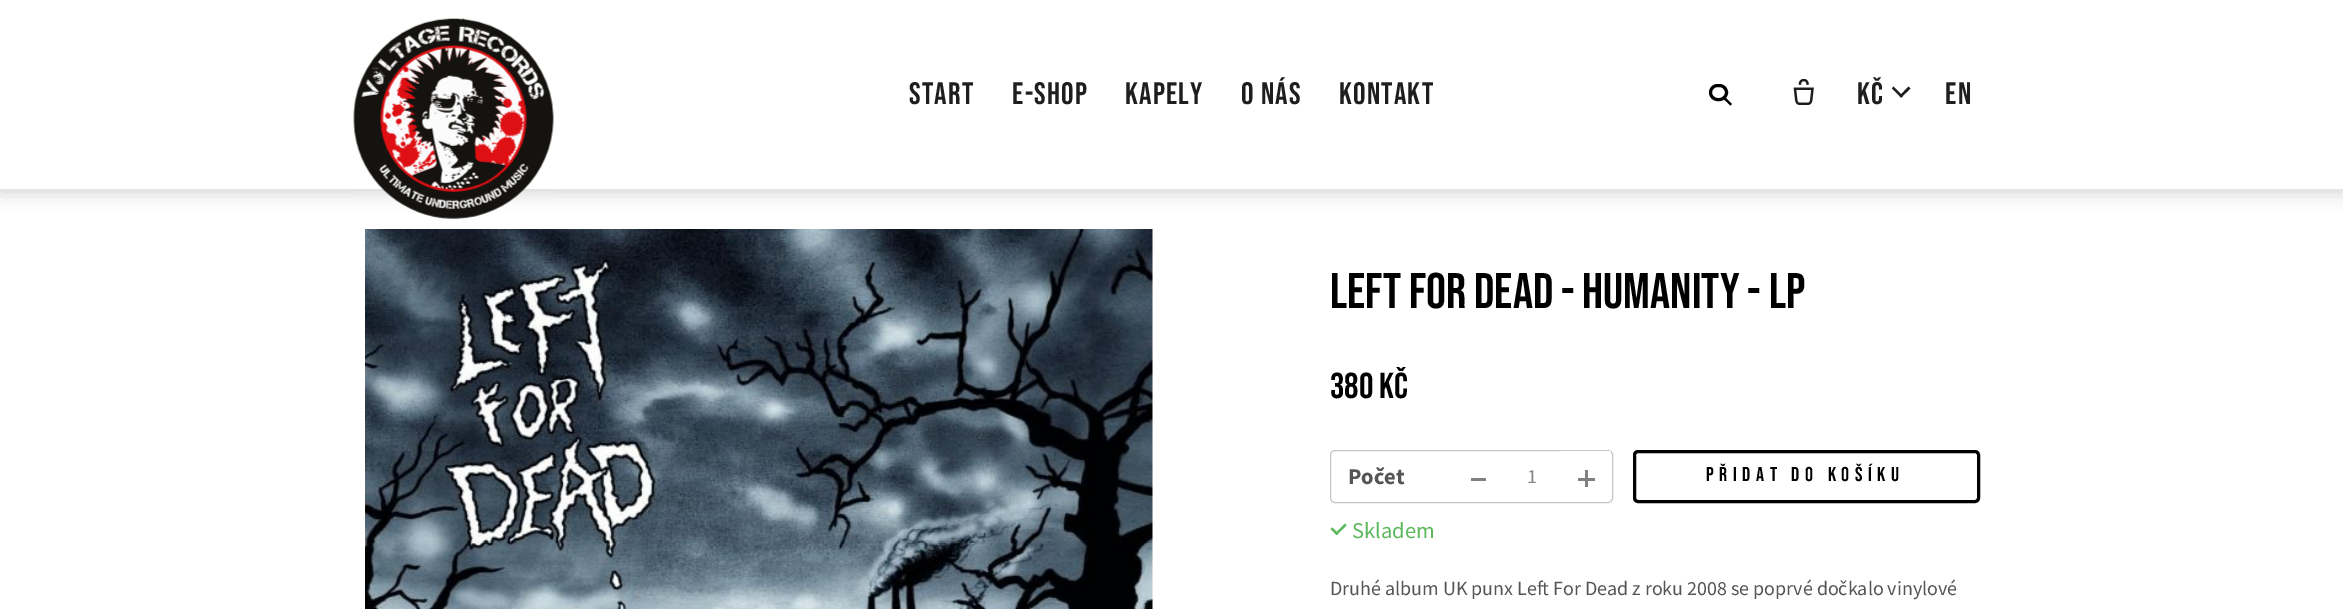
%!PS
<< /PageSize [2343 609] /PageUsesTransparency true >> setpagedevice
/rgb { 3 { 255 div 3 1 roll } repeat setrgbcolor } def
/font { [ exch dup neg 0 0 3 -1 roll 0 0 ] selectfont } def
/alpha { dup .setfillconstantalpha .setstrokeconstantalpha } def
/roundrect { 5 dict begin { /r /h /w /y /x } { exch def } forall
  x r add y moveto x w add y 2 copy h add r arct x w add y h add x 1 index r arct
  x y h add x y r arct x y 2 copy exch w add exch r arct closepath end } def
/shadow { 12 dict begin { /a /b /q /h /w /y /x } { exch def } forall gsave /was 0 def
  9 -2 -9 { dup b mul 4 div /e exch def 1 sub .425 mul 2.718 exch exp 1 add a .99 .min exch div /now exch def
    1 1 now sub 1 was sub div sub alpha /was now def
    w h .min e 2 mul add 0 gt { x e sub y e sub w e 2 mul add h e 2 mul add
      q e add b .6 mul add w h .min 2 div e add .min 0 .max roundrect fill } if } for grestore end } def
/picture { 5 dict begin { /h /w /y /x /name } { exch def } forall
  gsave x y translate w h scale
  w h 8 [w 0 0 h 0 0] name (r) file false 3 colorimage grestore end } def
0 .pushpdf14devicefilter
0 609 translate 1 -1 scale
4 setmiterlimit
255 255 255 rgb
0 0 2343 609 rectfill
0 0 0 rgb
0 3 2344 188 0 10 0.2 shadow
255 255 255 rgb
0 0 2343 189 rectfill
(img/1.rgb) 353 18 201 201 picture
0 0 0 rgb
3 setlinewidth
1710.5 85.5 16 14 7 roundrect stroke
1724 96 moveto 1732 104 lineto 1730.5 105.5 lineto 1722 97.5 lineto closepath fill
(img/2.rgb) 1793 79 21 26 picture
30 30 30 rgb
1908.5 86.5 moveto 1910.5 88.5 lineto 1901 97.5 lineto 1899.5 96 lineto closepath fill
1893.5 86.5 moveto 1903 96 lineto 1901 97.5 lineto 1892 88.5 lineto closepath fill
(img/3.rgb) 365 229 788 380 picture
197 197 197 rgb
1 setlinewidth
1330.5 450.5 282 52 4.5 roundrect stroke
128 128 128 rgb
1471 478 15 3 rectfill
255 255 255 rgb
1561 451 moveto 1608.5 451 lineto 1610 451 1611 452 1611 453.5 curveto 1611 498.5 lineto 1611 500 1610 501 1608.5 501 curveto 1561 501 lineto closepath fill
128 128 128 rgb
1578 478 17 3 rectfill
1585 470 3 17 rectfill
1 1 1 rgb
3 setlinewidth
1634.5 451.5 344 50 3.5 roundrect stroke
92 184 92 rgb
1345 523.5 moveto 1346.5 525.5 lineto 1336.5 535 lineto 1335 533.5 lineto closepath fill
1332.5 527.5 moveto 1338.5 533.5 lineto 1336.5 535 lineto 1330.5 529 lineto closepath fill
/BebasNeue-Regular 31 font
30 30 30 rgb
909 104 moveto 1.25 0 (START) ashow
1012 104 moveto 1.25 0 (E-SHOP) ashow
1125 104 moveto 1.25 0 (KAPELY) ashow
1241 104 moveto 1.25 0 (O NÁS) ashow
1339 104 moveto 1.25 0 (KONTAKT) ashow
1857 104 moveto 1.25 0 (Kč) ashow
1945 104 moveto 1.25 0 (en) ashow
/BebasNeue-Regular 50 font
0 0 0 rgb
1330 308 moveto (LEFT FOR DEAD - Humanity - LP) show
/BebasNeue-Regular 36 font
1330 398 moveto (380 Kč) show
/SourceSansPro-Bold 22.5 font
85 85 85 rgb
1348 484 moveto (Počet) show
/SourceSansPro-Regular 20 font
133 133 133 rgb
1527 483 moveto (1) show
/BebasNeue-Regular 20 font
0 0 0 rgb
1706 481 moveto 5.6 0 (PŘIDAT DO KOŠÍKU) ashow
/SourceSansPro-Regular 22.5 font
92 184 92 rgb
1352 538 moveto (Skladem) show
/SourceSansPro-Regular 20 font
85 85 85 rgb
1330 595 moveto (Druhé album UK punx Left For Dead z roku 2008 se poprvé dočkalo vinylové) show
.poppdf14devicefilter showpage
